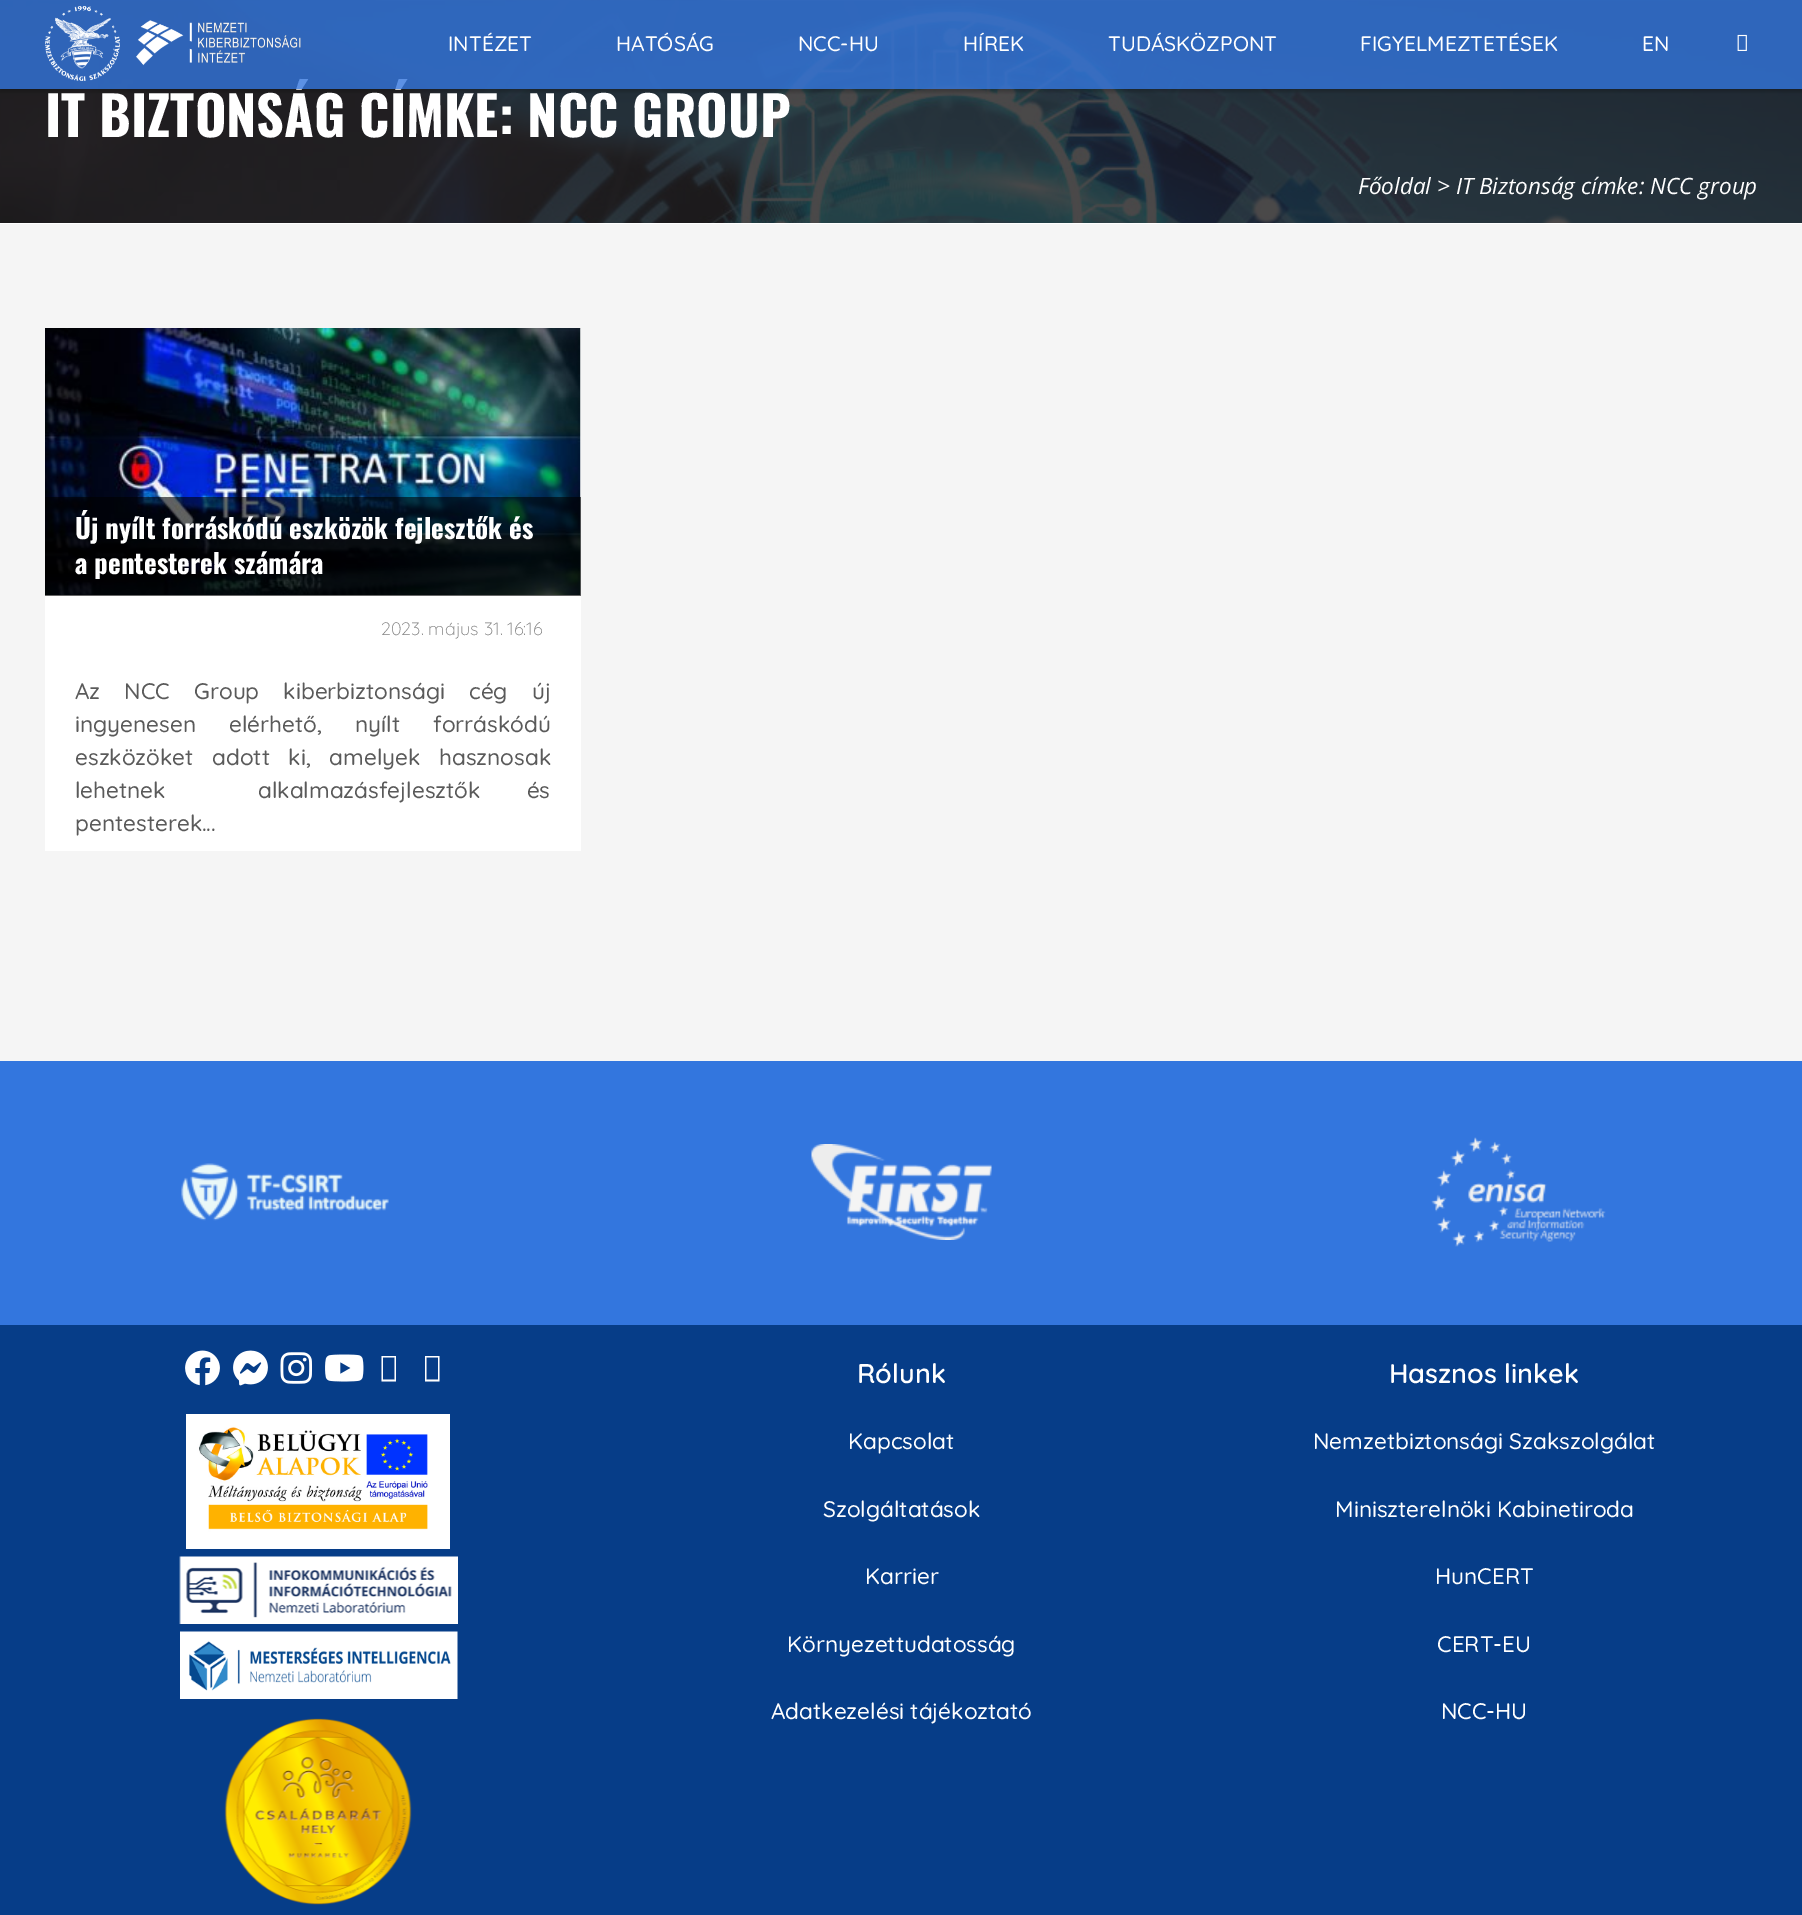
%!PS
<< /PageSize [1802 1915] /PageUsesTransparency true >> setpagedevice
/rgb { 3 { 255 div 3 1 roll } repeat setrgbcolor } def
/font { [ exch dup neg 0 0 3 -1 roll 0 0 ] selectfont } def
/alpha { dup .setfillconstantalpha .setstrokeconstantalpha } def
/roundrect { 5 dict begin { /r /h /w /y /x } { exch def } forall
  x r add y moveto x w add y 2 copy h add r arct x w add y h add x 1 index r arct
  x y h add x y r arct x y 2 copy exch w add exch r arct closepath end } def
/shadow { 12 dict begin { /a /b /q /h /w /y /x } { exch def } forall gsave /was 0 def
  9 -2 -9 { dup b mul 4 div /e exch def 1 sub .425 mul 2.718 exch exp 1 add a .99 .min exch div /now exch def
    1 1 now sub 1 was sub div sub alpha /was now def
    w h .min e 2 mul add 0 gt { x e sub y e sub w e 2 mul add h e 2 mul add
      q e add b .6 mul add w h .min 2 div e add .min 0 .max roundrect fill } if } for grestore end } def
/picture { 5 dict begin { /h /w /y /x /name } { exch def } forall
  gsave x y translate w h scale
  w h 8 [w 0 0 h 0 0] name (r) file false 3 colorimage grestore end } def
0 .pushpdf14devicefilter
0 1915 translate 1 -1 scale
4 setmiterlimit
255 255 255 rgb
0 0 1802 1915 rectfill
(img/3.rgb) 0 0 1802 223 picture
gsave
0 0 moveto 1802 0 lineto 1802 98 lineto 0 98 lineto closepath 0 -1 moveto 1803 -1 lineto 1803 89 lineto 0 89 lineto closepath eoclip newpath
0 0 0 rgb
0 2 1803 90 0 1.5 0.2 shadow
grestore
245 245 245 rgb
0 224 1802 837 rectfill
255 255 255 rgb
45 329 536 522 rectfill
(img/4.rgb) 45 328 536 267 picture
0.6 alpha
0 0 0 rgb
45 497 536 99 rectfill
1 alpha
51 118 222 rgb
0 1061 1802 264 rectfill
(img/5.rgb) 181 1163 208 58 picture
(img/6.rgb) 811 1144 181 96 picture
(img/7.rgb) 1431 1137 175 110 picture
6 61 136 rgb
0 1325 1802 590 rectfill
(img/8.rgb) 185 1350 35 36 picture
(img/9.rgb) 233 1350 35 36 picture
(img/10.rgb) 280 1352 32 32 picture
(img/11.rgb) 325 1354 39 28 picture
255 255 255 rgb
381.5 1381.5 moveto 381.5 1356 lineto 396 1356 lineto 396 1381.5 lineto closepath 383 1379.5 moveto 394.5 1379.5 lineto 394.5 1357.5 lineto 383 1357.5 lineto closepath 425 1381.5 moveto 425 1356 lineto 439.5 1356 lineto 439.5 1381.5 lineto closepath 426.5 1379.5 moveto 438 1379.5 lineto 438 1357.5 lineto 426.5 1357.5 lineto closepath fill
(img/12.rgb) 186 1414 264 135 picture
(img/13.rgb) 179 1556 279 68 picture
(img/14.rgb) 180 1631 278 68 picture
(img/15.rgb) 224 1718 188 187 picture
/Oswald-Bold 54 font
45 137 moveto (IT BIZTONSÁG CÍMKE: NCC GROUP) show
0.8 alpha
51 118 222 rgb
0 0 1802 89 rectfill
1 alpha
(img/2.rgb) 1737 34 10 17 picture
/Quicksand-Medium 21 font
255 255 255 rgb
[
  [(EN) 1642 51]
  [(FIGYELMEZTETÉSEK) 1360 51]
  [(TUDÁSKÖZPONT) 1108 51]
  [(HÍREK) 963 51]
  [(NCC-HU) 798 51]
  [(HATÓSÁG) 616 51]
  [(INTÉZET) 448 51]
] { aload pop moveto show } forall
(img/1.rgb) 45 6 256 75 picture
/OpenSans-Italic 22.5 font
1358 194 moveto (Főoldal > IT Biztonság címke: NCC group) show
/Oswald-Bold 27 font
75 539 moveto (Új nyílt forráskódú eszközök fejlesztők és) show
75 574 moveto (a pentesterek számára) show
/Quicksand-Light 18 font
128 128 128 rgb
381 635 moveto (2023. május 31. 16:16) show
/Quicksand-Medium 22.5 font
90 90 90 rgb
75 699 moveto 18 0 32 (Az NCC Group kiberbiztonsági cég új) widthshow
75 732 moveto 27 0 32 (ingyenesen elérhető, nyílt forráskódú) widthshow
75 765 moveto 12.5 0 32 (eszközöket adott ki, amelyek hasznosak) widthshow
75 798 moveto 40 0 32 (lehetnek  alkalmazásfejlesztők és) widthshow
75 831 moveto (pentesterek...) show
/Quicksand-SemiBold 27 font
255 255 255 rgb
857 1383 moveto (Rólunk) show
/Quicksand-Medium 22.5 font
[
  [(Kapcsolat) 848 1449]
  [(Szolgáltatások) 823 1517]
  [(Karrier) 865 1584]
  [(Környezettudatosság) 787 1652]
  [(Adatkezelési tájékoztató) 771 1719]
] { aload pop moveto show } forall
/Quicksand-SemiBold 27 font
1389 1383 moveto (Hasznos linkek) show
/Quicksand-Medium 22.5 font
[
  [(Nemzetbiztonsági Szakszolgálat) 1313 1449]
  [(Miniszterelnöki Kabinetiroda) 1335 1517]
  [(HunCERT) 1435 1584]
  [(CERT-EU) 1437 1652]
  [(NCC-HU) 1441 1719]
] { aload pop moveto show } forall
.poppdf14devicefilter showpage
